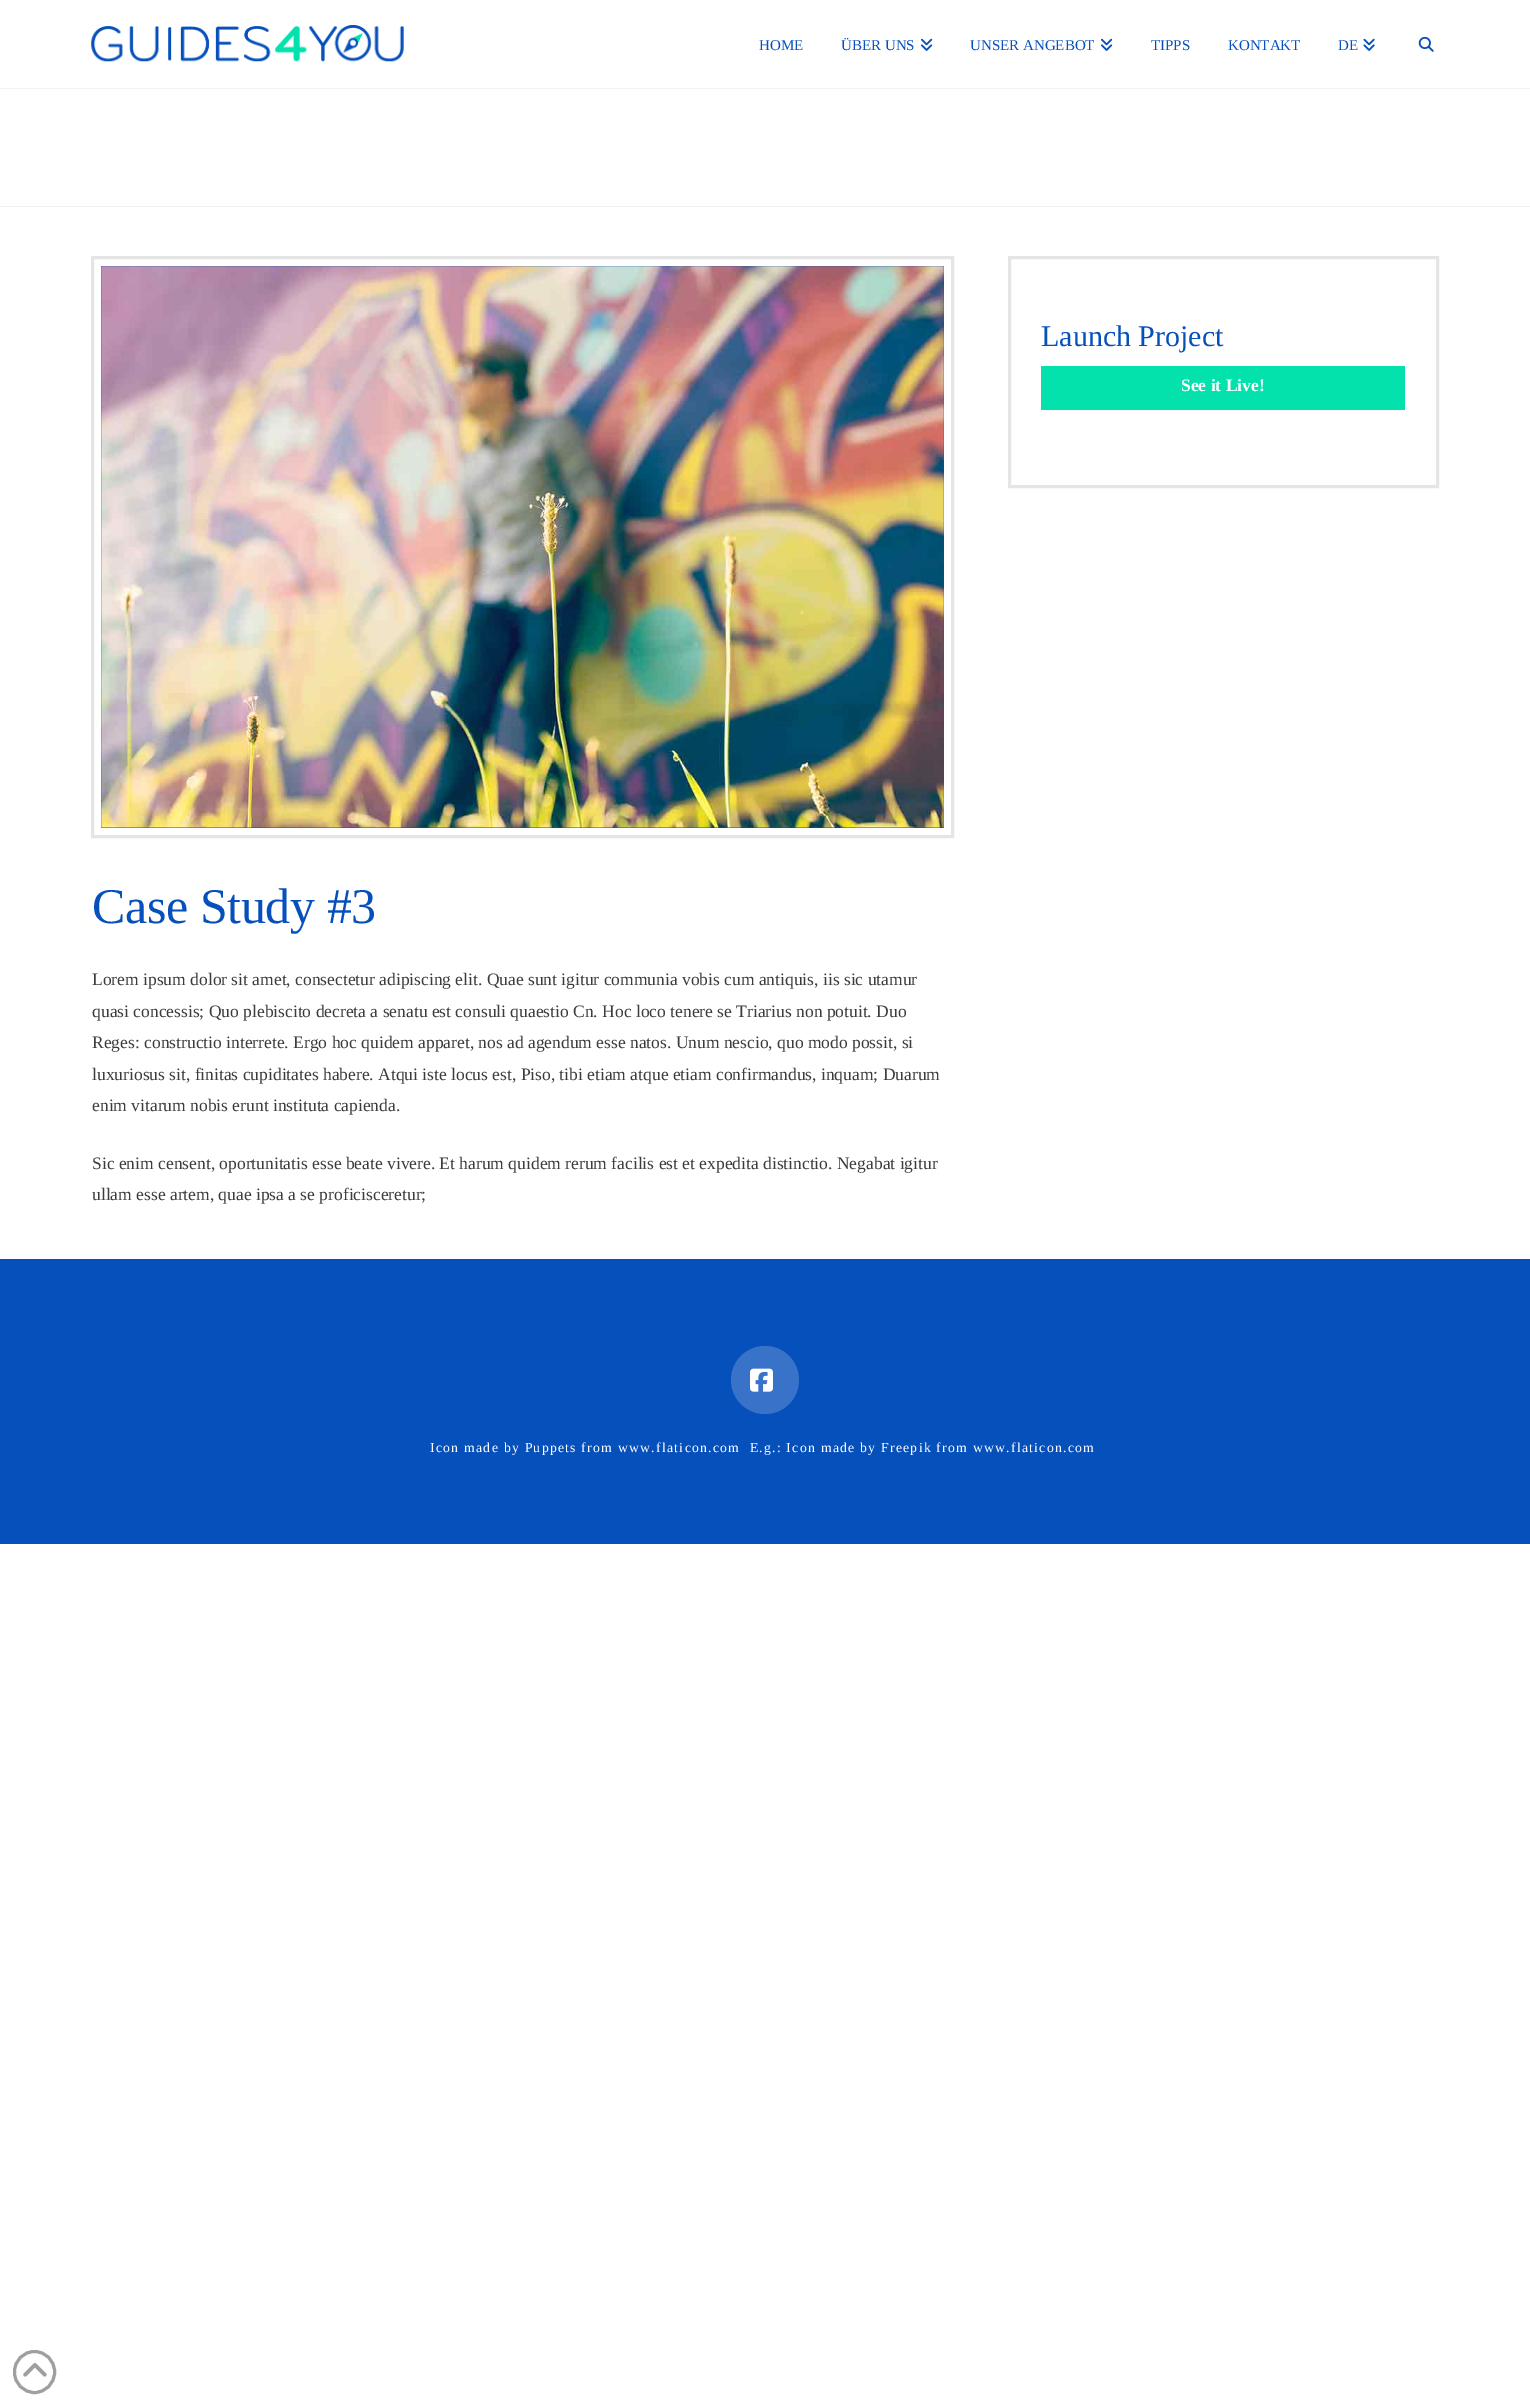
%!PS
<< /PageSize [1530 2406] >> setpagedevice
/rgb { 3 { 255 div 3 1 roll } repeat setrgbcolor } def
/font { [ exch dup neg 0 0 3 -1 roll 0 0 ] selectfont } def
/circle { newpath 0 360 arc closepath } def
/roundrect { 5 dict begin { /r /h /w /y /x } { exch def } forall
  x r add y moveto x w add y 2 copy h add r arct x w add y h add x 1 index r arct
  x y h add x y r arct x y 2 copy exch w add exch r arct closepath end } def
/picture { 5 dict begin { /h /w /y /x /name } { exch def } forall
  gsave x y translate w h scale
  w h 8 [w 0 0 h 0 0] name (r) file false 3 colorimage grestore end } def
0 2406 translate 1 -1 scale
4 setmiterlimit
255 255 255 rgb
0 0 1530 2406 rectfill
(img/1.rgb) 91 25 313 37 picture
(img/2.rgb) 921 38 12 13 picture
(img/2.rgb) 1101 38 12 13 picture
(img/3.rgb) 1363 38 12 13 picture
(img/4.rgb) 1418 36 16 16 picture
242 242 242 rgb
0 88 1530 1 rectfill
0 206 1530 1 rectfill
229 229 229 rgb
3 setlinewidth
1009.5 257.5 428 229 rectstroke
3 226 173 rgb
1041 366 364 44 rectfill
229 229 229 rgb
92.5 257.5 860 579 rectstroke
6 80 188 rgb
101 266 843 562 rectfill
(img/5.rgb) 101 266 843 562 picture
0 1259 1530 285 rectfill
56 115 201 rgb
765 1380 34 circle fill
(img/6.rgb) 750 1368 23 24 picture
159 159 159 rgb
14.5 2351.5 40 41 20 roundrect stroke
(img/7.rgb) 23 2363 24 14 picture
/LiberationSerif-Regular 15 font
6 80 188 rgb
[
  [(HOME) 759 50]
  [(ÜBER UNS) 841 50]
  [(UNSER ANGEBOT) 970 50]
  [(TIPPS) 1151 50]
  [(KONTAKT) 1228 50]
  [(DE) 1338 50]
] { aload pop moveto show } forall
/LiberationSerif-Regular 30 font
1041 346 moveto (Launch Project) show
/LiberationSerif-Bold 17.5 font
255 255 255 rgb
1181 391 moveto (See it Live!) show
/LiberationSerif-Regular 50 font
6 80 188 rgb
92 923 moveto -0.4 0 (Case Study #3) ashow
/LiberationSerif-Regular 17.5 font
60 60 60 rgb
[
  [(Lorem ipsum dolor sit amet, consectetur adipiscing elit. Quae sunt igitur communia vobis cum antiquis, iis sic utamur) 92 985]
  [(quasi concessis; Quo plebiscito decreta a senatu est consuli quaestio Cn. Hoc loco tenere se Triarius non potuit. Duo) 92 1017]
  [(Reges: constructio interrete. Ergo hoc quidem apparet, nos ad agendum esse natos. Unum nescio, quo modo possit, si) 92 1048]
  [(luxuriosus sit, finitas cupiditates habere. Atqui iste locus est, Piso, tibi etiam atque etiam confirmandus, inquam; Duarum) 92 1080]
  [(enim vitarum nobis erunt instituta capienda.) 92 1111]
  [(Sic enim censent, oportunitatis esse beate vivere. Et harum quidem rerum facilis est et expedita distinctio. Negabat igitur) 92 1169]
  [(ullam esse artem, quae ipsa a se proficisceretur;) 92 1200]
] { aload pop moveto show } forall
/LiberationSerif-Regular 13.75 font
255 255 255 rgb
430 1452 moveto 1.25 0 (Icon made by Puppets from www.flaticon.com  E.g.: Icon made by Freepik from www.flaticon.com) ashow
showpage
